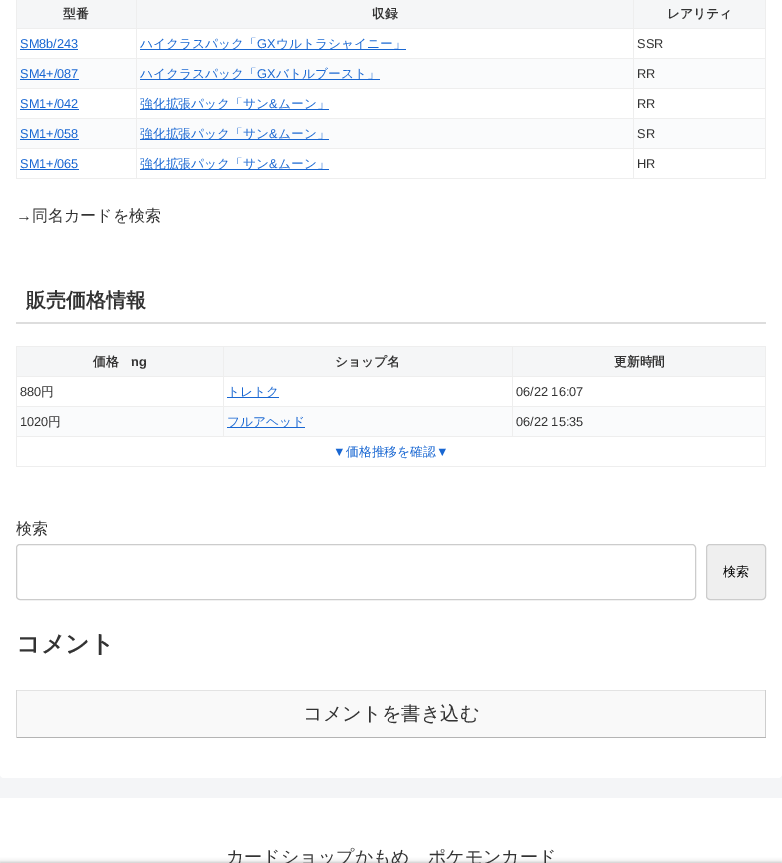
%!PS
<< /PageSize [782 863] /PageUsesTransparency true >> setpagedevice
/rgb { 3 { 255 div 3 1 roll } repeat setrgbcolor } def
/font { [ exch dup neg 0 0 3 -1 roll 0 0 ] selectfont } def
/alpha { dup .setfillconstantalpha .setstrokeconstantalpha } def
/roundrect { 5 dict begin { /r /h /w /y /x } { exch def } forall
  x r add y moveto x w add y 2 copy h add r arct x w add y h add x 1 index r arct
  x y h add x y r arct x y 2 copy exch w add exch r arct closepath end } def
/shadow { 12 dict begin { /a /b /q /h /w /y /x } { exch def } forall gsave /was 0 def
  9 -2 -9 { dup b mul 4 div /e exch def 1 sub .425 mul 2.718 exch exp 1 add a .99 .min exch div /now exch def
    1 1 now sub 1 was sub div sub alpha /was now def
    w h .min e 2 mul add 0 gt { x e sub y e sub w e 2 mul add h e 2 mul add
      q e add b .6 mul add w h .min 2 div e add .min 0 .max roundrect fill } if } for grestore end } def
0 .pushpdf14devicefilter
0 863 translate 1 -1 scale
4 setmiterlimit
244 245 247 rgb
0 0 782 863 rectfill
255 255 255 rgb
0 -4 782 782 4 roundrect fill
[
  [17 0 119 28 245 246 247]
  [137 0 496 28 245 246 247]
  [633 28 133 1 238 238 238]
  [633 58 133 1 238 238 238]
  [17 59 748 29 250 251 252]
  [633 88 133 1 238 238 238]
  [633 118 133 1 238 238 238]
  [17 119 748 29 250 251 252]
  [633 148 133 1 238 238 238]
  [765 148 1 31 238 238 238]
  [633 178 133 1 238 238 238]
  [633 148 1 31 238 238 238]
  [136 148 498 1 238 238 238]
  [633 118 1 31 238 238 238]
  [136 118 498 1 238 238 238]
  [633 88 1 31 238 238 238]
  [136 88 498 1 238 238 238]
  [633 58 1 31 238 238 238]
  [136 58 498 1 238 238 238]
  [633 28 1 31 238 238 238]
  [136 28 498 1 238 238 238]
  [136 178 498 1 238 238 238]
  [136 148 1 31 238 238 238]
  [16 148 121 1 238 238 238]
  [136 118 1 31 238 238 238]
  [16 118 121 1 238 238 238]
  [136 88 1 31 238 238 238]
  [16 88 121 1 238 238 238]
  [136 58 1 31 238 238 238]
  [16 58 121 1 238 238 238]
  [136 28 1 31 238 238 238]
  [16 28 121 1 238 238 238]
  [136 0 1 29 238 238 238]
  [634 0 131 28 245 246 247]
  [633 0 1 29 238 238 238]
  [16 178 121 1 238 238 238]
  [16 148 1 31 238 238 238]
  [16 118 1 31 238 238 238]
  [16 88 1 31 238 238 238]
  [16 58 1 31 238 238 238]
  [16 0 1 59 238 238 238]
  [20 49 58 1 25 103 210]
  [140 49 266 1 25 103 210]
  [765 118 1 31 238 238 238]
  [765 88 1 31 238 238 238]
  [765 58 1 31 238 238 238]
  [765 0 1 59 238 238 238]
  [20 79 59 1 25 103 210]
  [140 79 240 1 25 103 210]
  [20 109 59 1 25 103 210]
  [140 109 189 1 25 103 210]
  [20 139 59 1 25 103 210]
  [140 139 189 1 25 103 210]
  [20 169 59 1 25 103 210]
  [140 169 189 1 25 103 210]
  [16 322 750 2 221 221 221]
  [17 347 206 29 245 246 247]
  [512 346 254 1 238 238 238]
  [512 376 254 1 238 238 238]
  [512 406 254 1 238 238 238]
  [17 407 748 29 250 251 252]
  [16 436 750 1 238 238 238]
  [512 406 1 31 238 238 238]
  [223 406 290 1 238 238 238]
  [512 376 1 31 238 238 238]
  [223 376 290 1 238 238 238]
  [512 346 1 31 238 238 238]
  [223 346 290 1 238 238 238]
  [223 406 1 31 238 238 238]
  [16 406 208 1 238 238 238]
  [223 376 1 31 238 238 238]
  [16 376 208 1 238 238 238]
  [223 346 1 31 238 238 238]
  [16 346 208 1 238 238 238]
  [765 436 1 31 238 238 238]
  [16 466 750 1 238 238 238]
  [16 436 1 31 238 238 238]
  [16 406 1 31 238 238 238]
  [16 376 1 31 238 238 238]
  [16 346 1 31 238 238 238]
  [224 347 288 29 245 246 247]
  [513 347 252 29 245 246 247]
  [765 406 1 31 238 238 238]
  [765 376 1 31 238 238 238]
  [765 346 1 31 238 238 238]
  [227 397 52 1 25 103 210]
  [227 427 78 1 25 103 210]
] { aload pop rgb rectfill } forall
204 204 204 rgb
16.5 544.5 679 55 3.5 roundrect stroke
239 239 239 rgb
706.5 544.5 59 55 3.5 roundrect gsave fill grestore
204 204 204 rgb
stroke
[
  [17 691 748 46 249 249 249]
  [16 690 750 1 227 227 227]
  [765 690 1 48 206 206 206]
  [16 737 750 1 180 180 180]
  [16 690 1 48 214 214 214]
  [0 798 782 65 255 255 255]
] { aload pop rgb rectfill } forall
169 169 169 rgb
0 863 782 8 0 2.5 1 shadow
/WenQuanYiZenHei-Bold 12.75 font
51 51 51 rgb
[
  [(型番) 63 18]
  [(収録) 372 18]
  [(レアリティ) 667 18]
] { aload pop moveto show } forall
/LiberationSans-Regular 12.75 font
25 103 210 rgb
20 48 moveto (SM8b/243) show
/WenQuanYiZenHei-Medium 12.75 font
140 48 moveto (ハイクラスパック「) show
/LiberationSans-Regular 12.75 font
257 48 moveto (GX) show
/WenQuanYiZenHei-Medium 12.75 font
276 48 moveto (ウルトラシャイニー」) show
/LiberationSans-Regular 12.75 font
51 51 51 rgb
637 48 moveto (SSR) show
25 103 210 rgb
20 78 moveto (SM4+/087) show
/WenQuanYiZenHei-Medium 12.75 font
140 78 moveto (ハイクラスパック「) show
/LiberationSans-Regular 12.75 font
257 78 moveto (GX) show
/WenQuanYiZenHei-Medium 12.75 font
276 78 moveto (バトルブースト」) show
/LiberationSans-Regular 12.75 font
51 51 51 rgb
637 78 moveto (RR) show
25 103 210 rgb
20 108 moveto (SM1+/042) show
/WenQuanYiZenHei-Medium 12.75 font
140 108 moveto (強化拡張パック「サン) show
/LiberationSans-Regular 12.75 font
269 108 moveto (&) show
/WenQuanYiZenHei-Medium 12.75 font
278 108 moveto (ムーン」) show
/LiberationSans-Regular 12.75 font
51 51 51 rgb
637 108 moveto (RR) show
25 103 210 rgb
20 138 moveto (SM1+/058) show
/WenQuanYiZenHei-Medium 12.75 font
140 138 moveto (強化拡張パック「サン) show
/LiberationSans-Regular 12.75 font
269 138 moveto (&) show
/WenQuanYiZenHei-Medium 12.75 font
278 138 moveto (ムーン」) show
/LiberationSans-Regular 12.75 font
51 51 51 rgb
637 138 moveto (SR) show
25 103 210 rgb
20 168 moveto (SM1+/065) show
/WenQuanYiZenHei-Medium 12.75 font
140 168 moveto (強化拡張パック「サン) show
/LiberationSans-Regular 12.75 font
269 168 moveto (&) show
/WenQuanYiZenHei-Medium 12.75 font
278 168 moveto (ムーン」) show
/LiberationSans-Regular 12.75 font
51 51 51 rgb
637 168 moveto (HR) show
/LiberationSans-Regular 16 font
16 221 moveto (→) show
/WenQuanYiZenHei-Medium 16 font
32 221 moveto (同名カードを検索) show
/WenQuanYiZenHei-Bold 20 font
26 307 moveto (販売価格情報) show
/WenQuanYiZenHei-Bold 12.75 font
93 366 moveto (価格) show
/LiberationSans-Bold 12.75 font
131 366 moveto (ng) show
/WenQuanYiZenHei-Bold 12.75 font
335 366 moveto (ショップ名) show
614 366 moveto (更新時間) show
/LiberationSans-Regular 12.75 font
20 396 moveto (880) show
/WenQuanYiZenHei-Medium 12.75 font
41 396 moveto (円) show
25 103 210 rgb
227 396 moveto (トレトク) show
/LiberationSans-Regular 12.75 font
51 51 51 rgb
516 396 moveto (06/22 16:07) show
20 426 moveto (1020) show
/WenQuanYiZenHei-Medium 12.75 font
48 426 moveto (円) show
25 103 210 rgb
227 426 moveto (フルアヘッド) show
/LiberationSans-Regular 12.75 font
51 51 51 rgb
516 426 moveto (06/22 15:35) show
25 103 210 rgb
333 456 moveto (▼) show
/WenQuanYiZenHei-Medium 12.75 font
346 456 moveto (価格推移を確認) show
/LiberationSans-Regular 12.75 font
436 456 moveto (▼) show
/WenQuanYiZenHei-Medium 16 font
51 51 51 rgb
16 534 moveto (検索) show
/WenQuanYiZenHei-Medium 13 font
0 0 0 rgb
723 576 moveto (検索) show
/WenQuanYiZenHei-Bold 24 font
51 51 51 rgb
16 652 moveto (コメント) show
/WenQuanYiZenHei-Medium 19.25 font
303 720 moveto (コメントを書き込む) show
/WenQuanYiZenHei-Medium 18 font
226 863 moveto (カードショップかもめ　ポケモンカード) show
.poppdf14devicefilter showpage
